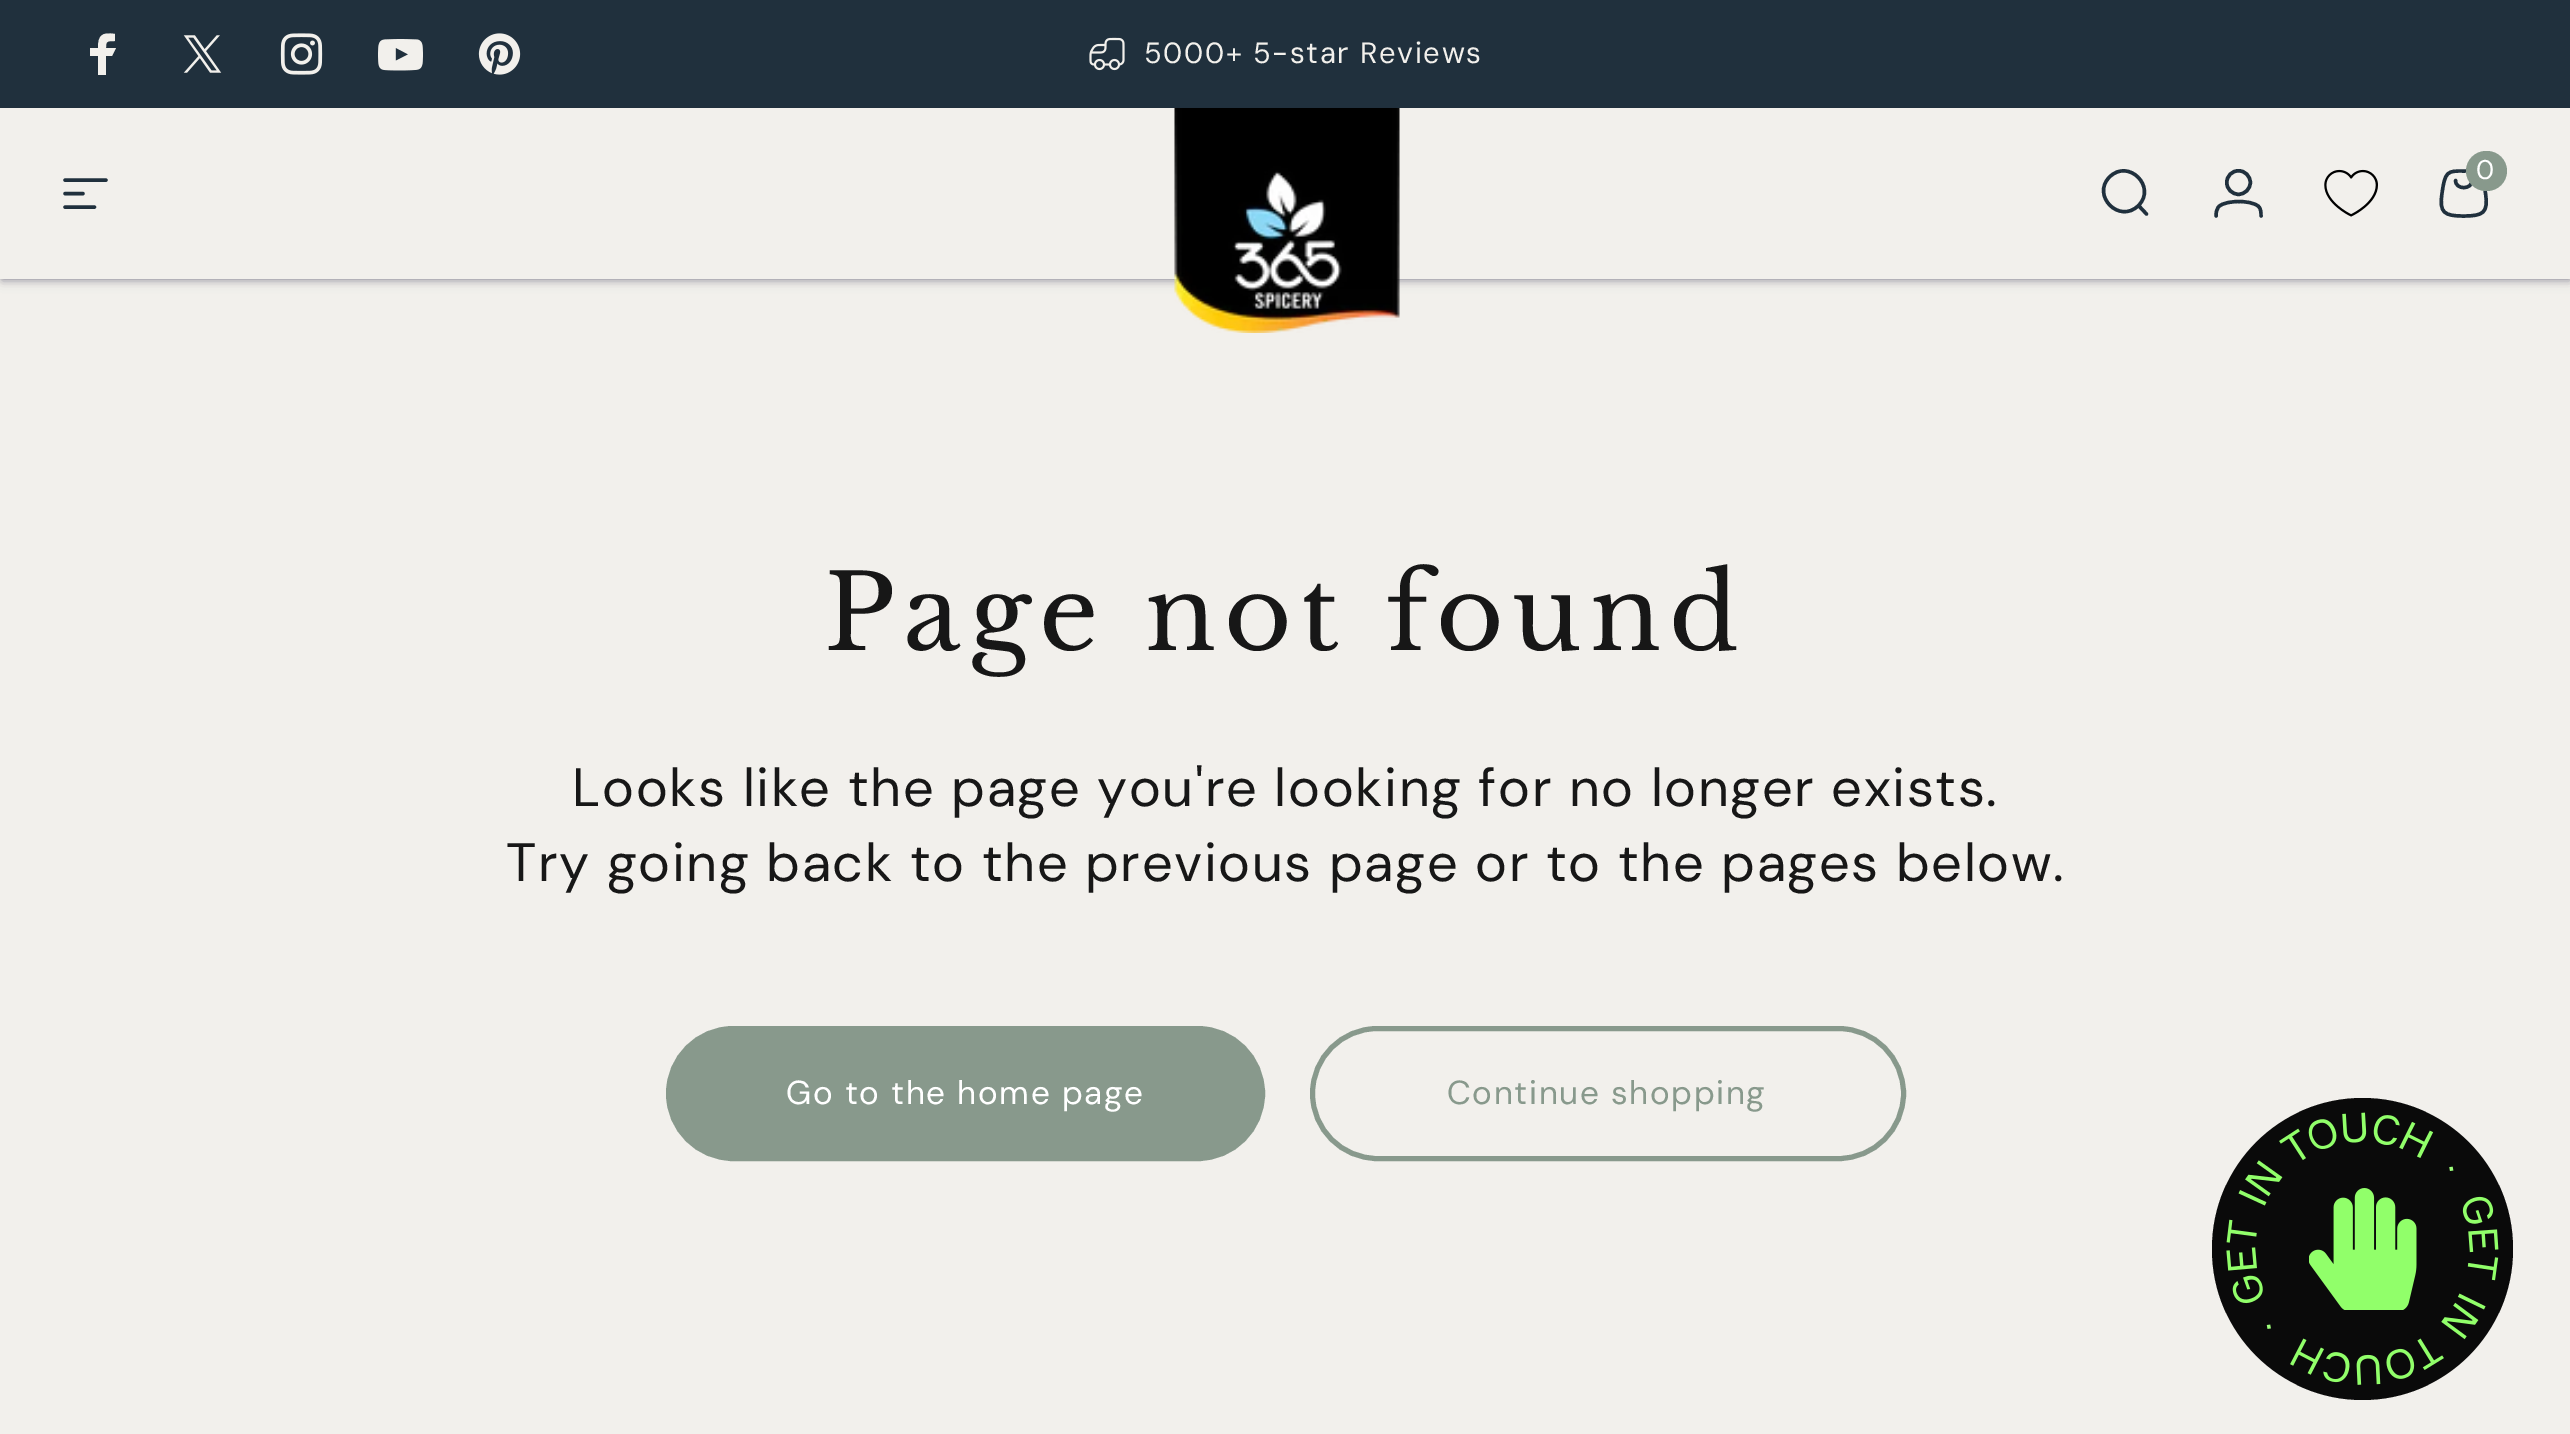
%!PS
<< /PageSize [2570 1434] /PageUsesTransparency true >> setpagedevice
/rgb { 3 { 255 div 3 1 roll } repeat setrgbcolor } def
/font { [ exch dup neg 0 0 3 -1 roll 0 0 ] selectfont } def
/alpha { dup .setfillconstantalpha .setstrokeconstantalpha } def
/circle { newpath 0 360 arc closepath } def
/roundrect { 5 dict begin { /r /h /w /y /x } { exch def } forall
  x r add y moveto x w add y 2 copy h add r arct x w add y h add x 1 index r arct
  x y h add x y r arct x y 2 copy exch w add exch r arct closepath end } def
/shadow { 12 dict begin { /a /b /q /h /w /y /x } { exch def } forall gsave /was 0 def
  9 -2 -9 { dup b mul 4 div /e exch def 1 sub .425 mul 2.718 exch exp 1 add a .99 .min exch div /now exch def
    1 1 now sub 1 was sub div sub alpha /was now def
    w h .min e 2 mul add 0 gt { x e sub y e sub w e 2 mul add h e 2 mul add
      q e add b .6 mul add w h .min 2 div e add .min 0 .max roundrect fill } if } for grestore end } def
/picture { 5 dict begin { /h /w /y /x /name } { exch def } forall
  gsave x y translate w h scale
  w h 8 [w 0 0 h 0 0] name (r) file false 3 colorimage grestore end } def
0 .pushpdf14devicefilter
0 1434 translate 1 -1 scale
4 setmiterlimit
32 48 61 rgb
0 0 2570 1434 rectfill
242 240 236 rgb
98 75 moveto 98 56 lineto 90 56 lineto 90 48 lineto 98 48 lineto 98 35 102 32 115 34 curveto 115 41 lineto 107 41 106 41 106 48 curveto 116 48 lineto 112 56 lineto 106 56 lineto 106 75 lineto closepath fill
(img/1.rgb) 183 35 39 38 picture
(img/2.rgb) 280 33 43 42 picture
(img/3.rgb) 378 39 45 32 picture
(img/4.rgb) 478 33 43 42 picture
(img/5.rgb) 1089 37 36 34 picture
0 279 2570 1155 rectfill
0 0 0 rgb
2 113 2568 166 0 3.5 0.3 shadow
50 50 93 rgb
2 115 2568 166 0 5.5 0.25 shadow
242 240 236 rgb
0 108 2570 171 rectfill
(img/6.rgb) 1174 108 226 225 picture
32 48 61 rgb
3.4 setlinewidth
1 setlinecap
2146.5 214 moveto 2138.5 205.5 lineto 2138.5 205.5 moveto 2157 187 2128.5 158 2109.5 177 curveto 2091 195.5 2119.5 224.5 2138.5 205.5 curveto closepath stroke
3.5 setlinewidth
0 setlinecap
2238.5 182.5 11.75 circle stroke
3.4 setlinewidth
1 setlinecap
2239 201.5 moveto 2244 201.5 2255.5 202.5 2259 207 curveto 2261 209.5 2261 212.5 2261 216 curveto 2239 201.5 moveto 2233.5 201.5 2222 202.5 2218.5 207 curveto 2216.5 209.5 2216 212.5 2216 216 curveto stroke
(img/7.rgb) 2324 169 54 48 picture
1 setlinejoin
2472 180.5 moveto 2472 190 2455.5 190 2455.5 180.5 curveto 2485.5 193.5 moveto 2488.5 213 2483 216 2463.5 216 curveto 2444.5 216 2439 213 2442 193.5 curveto 2445 171 2447.5 171 2463.5 171 curveto 2480 171 2482.5 171 2485.5 193.5 curveto closepath stroke
136 153 140 rgb
2466 151 41 40 20 roundrect fill
32 48 61 rgb
0 setlinejoin
65 180 moveto 106 180 lineto 65 193.5 moveto 83 193.5 lineto 65 207 moveto 94.5 207 lineto stroke
136 153 140 rgb
668.5 1028.5 594 130 65 roundrect gsave fill grestore
5 setlinewidth
0 setlinecap
stroke
1312.5 1028.5 591 130 65 roundrect stroke
10 10 10 rgb
2212 1098 301 302 150.5 roundrect fill
(img/8.rgb) 2226 1112 273 273 picture
(img/9.rgb) 2309 1188 108 122 picture
/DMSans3-Regular 29.25 font
242 240 236 rgb
1144 63 moveto 1.62 0 (5000+ 5-star Reviews) ashow
/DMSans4-Regular 27 font
255 255 255 rgb
2476 179 moveto 1.62 0 (0) ashow
/LibreBaskerville-Regular 103.5 font
23 23 23 rgb
824 650 moveto 8.25 0 (Page not found) ashow
/DMSans-Regular 54 font
572 806 moveto 1.62 0 (Looks like the page you're looking for no longer exists.) ashow
506 881 moveto 1.62 0 (Try going back to the previous page or to the pages below.) ashow
/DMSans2-Regular 33.25 font
255 255 255 rgb
786 1104 moveto 1.62 0 (Go to the home page) ashow
136 153 140 rgb
1447 1104 moveto 1.62 0 (Continue shopping) ashow
.poppdf14devicefilter showpage
